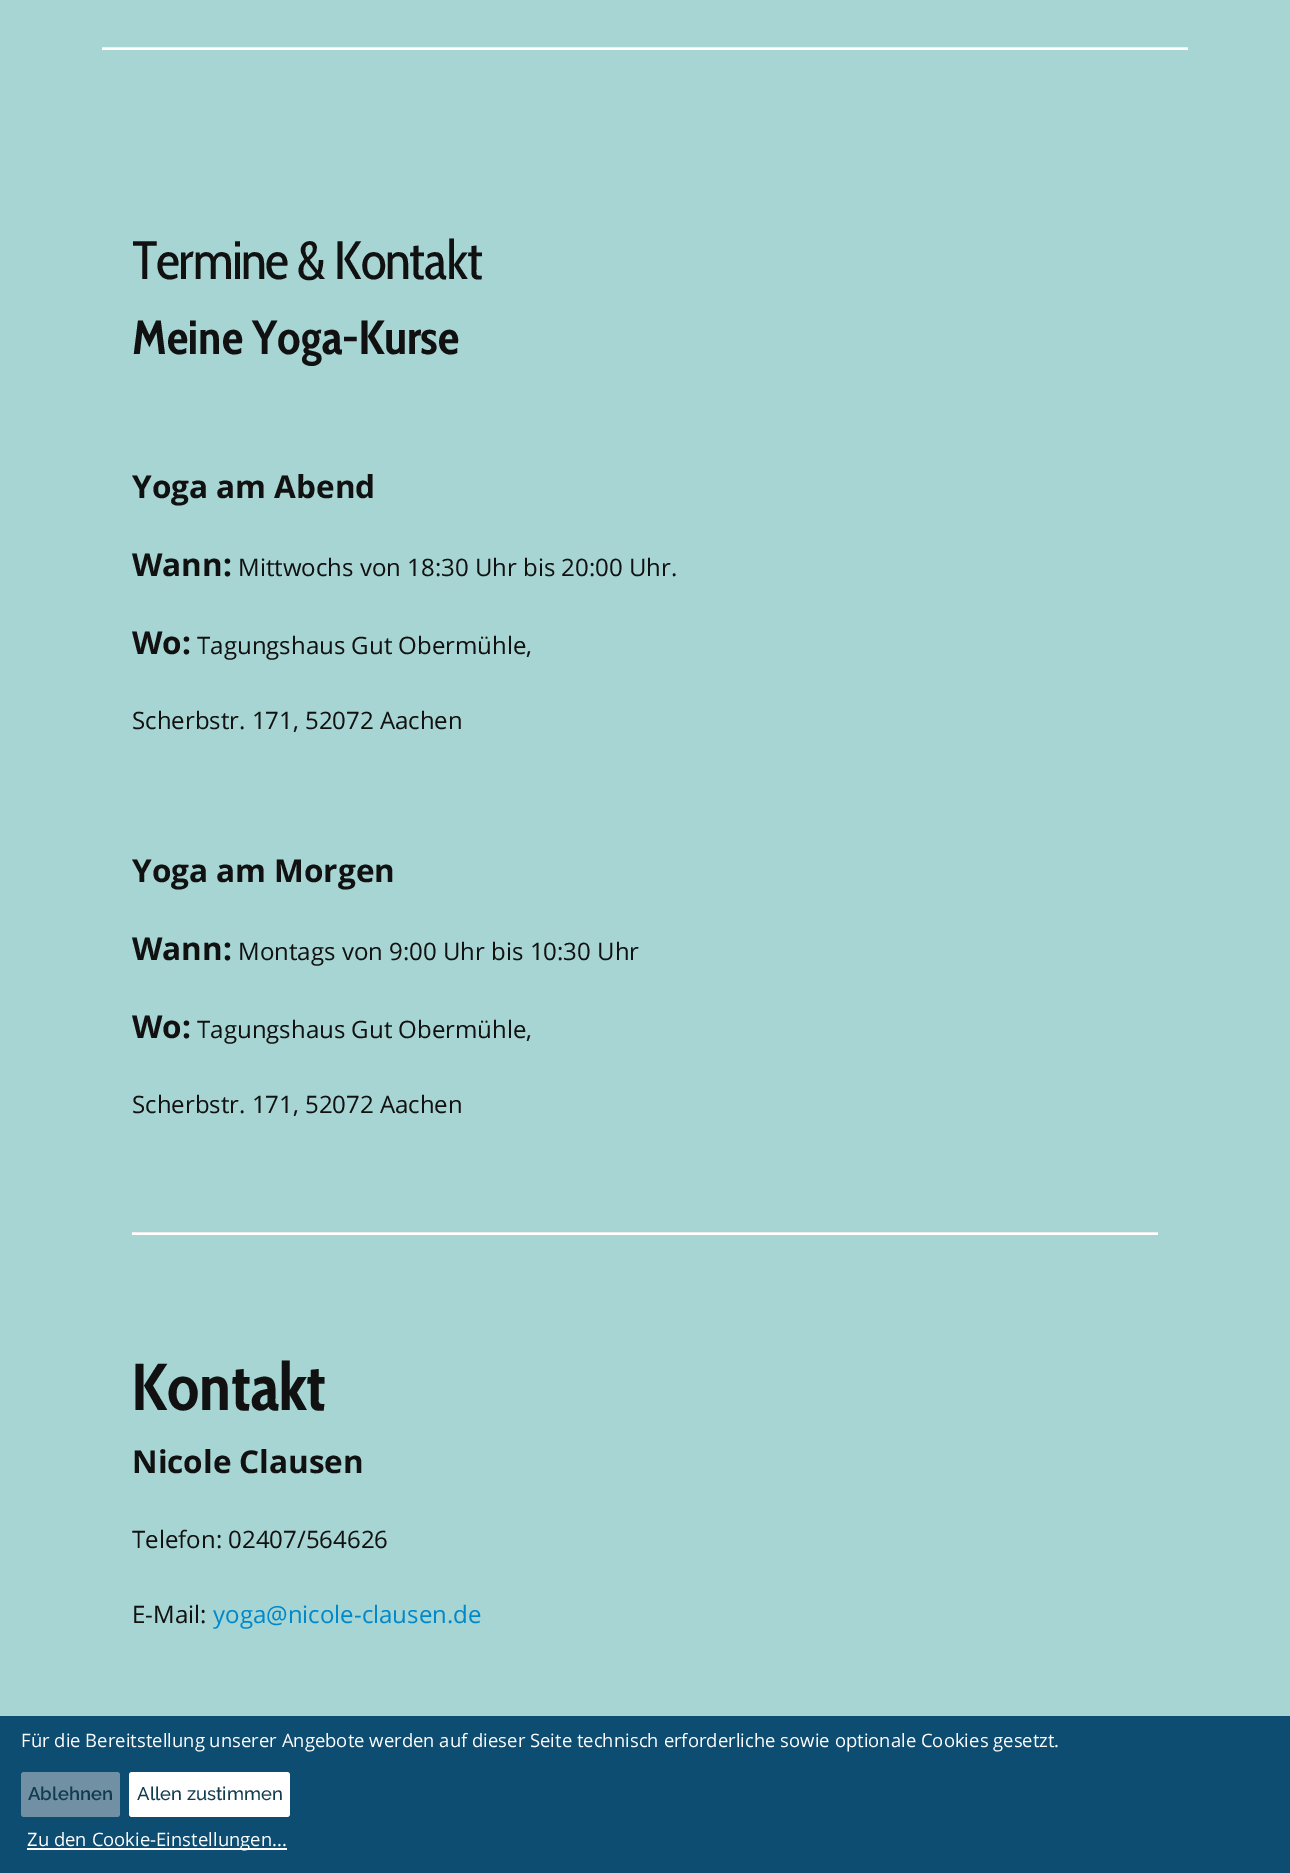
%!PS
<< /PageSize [1290 1873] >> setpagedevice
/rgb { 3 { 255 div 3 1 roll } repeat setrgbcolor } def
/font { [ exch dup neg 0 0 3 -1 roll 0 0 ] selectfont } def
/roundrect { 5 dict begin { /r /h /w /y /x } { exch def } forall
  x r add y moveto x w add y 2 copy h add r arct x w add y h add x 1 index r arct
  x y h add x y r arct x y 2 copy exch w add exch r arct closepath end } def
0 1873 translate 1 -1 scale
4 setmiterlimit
166 213 211 rgb
0 0 1290 1873 rectfill
[
  [102 47 1086 1 238 238 238]
  [102 48 1086 2 255 255 255]
  [132 1232 1026 1 238 238 238]
  [132 1233 1026 2 255 255 255]
  [0 1716 1290 157 13 77 114]
] { aload pop rgb rectfill } forall
113 144 164 rgb
21 1772 99 45 3 roundrect fill
255 255 255 rgb
129 1772 161 45 3 roundrect fill
27 1848 260 2 rectfill
/CabinCondensed-Regular 54 font
17 17 17 rgb
132 279 moveto -1.5 0 (Termine & Kontakt) ashow
/CabinCondensed-Bold 48 font
132 354 moveto (Meine Yoga-Kurse) show
/OpenSans-Bold 31.5 font
132 498 moveto (Yoga am Abend) show
132 576 moveto (Wann:) show
/OpenSans-Regular 24 font
238 576 moveto (Mittwochs von 18:30 Uhr bis 20:00 Uhr.) show
/OpenSans-Bold 31.5 font
132 654 moveto (Wo:) show
/OpenSans-Regular 24 font
197 654 moveto (Tagungshaus Gut Obermühle,) show
132 729 moveto (Scherbstr. 171, 52072 Aachen) show
/OpenSans-Bold 31.5 font
132 882 moveto (Yoga am Morgen) show
132 960 moveto (Wann:) show
/OpenSans-Regular 24 font
238 960 moveto (Montags von 9:00 Uhr bis 10:30 Uhr) show
/OpenSans-Bold 31.5 font
132 1038 moveto (Wo:) show
/OpenSans-Regular 24 font
197 1038 moveto (Tagungshaus Gut Obermühle,) show
132 1113 moveto (Scherbstr. 171, 52072 Aachen) show
/CabinCondensed-Bold 66 font
132 1410 moveto (Kontakt) show
/OpenSans-Bold 31.5 font
132 1473 moveto (Nicole Clausen) show
/OpenSans-Regular 24 font
132 1548 moveto (Telefon: 02407/564626) show
132 1623 moveto (E-Mail:) show
0 136 204 rgb
213 1623 moveto (yoga@nicole-clausen.de) show
/OpenSans-Regular 18.48 font
255 255 255 rgb
21 1747 moveto (Für die Bereitstellung unserer Angebote werden auf dieser Seite technisch erforderliche sowie optionale Cookies gesetzt.) show
/Raleway-SemiBold 18.48 font
17 59 78 rgb
28 1800 moveto (Ablehnen) show
/Raleway-Medium 18.48 font
137 1800 moveto (Allen zustimmen) show
/OpenSans-Regular 18.48 font
255 255 255 rgb
27 1846 moveto (Zu den Cookie-Einstellungen...) show
showpage
